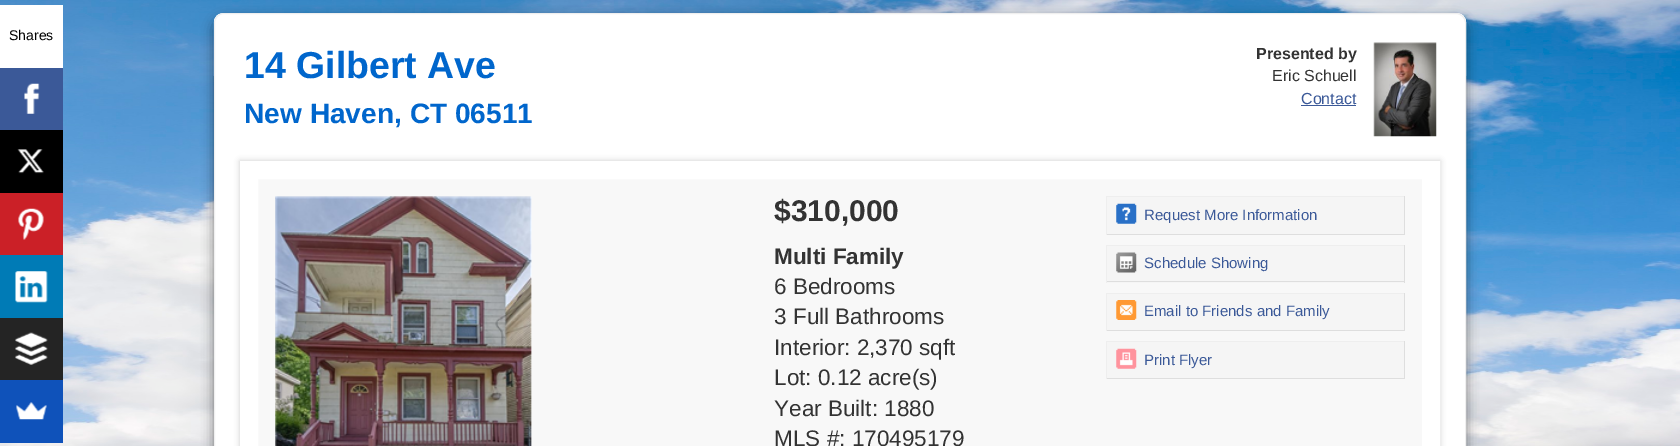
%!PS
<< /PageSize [1680 446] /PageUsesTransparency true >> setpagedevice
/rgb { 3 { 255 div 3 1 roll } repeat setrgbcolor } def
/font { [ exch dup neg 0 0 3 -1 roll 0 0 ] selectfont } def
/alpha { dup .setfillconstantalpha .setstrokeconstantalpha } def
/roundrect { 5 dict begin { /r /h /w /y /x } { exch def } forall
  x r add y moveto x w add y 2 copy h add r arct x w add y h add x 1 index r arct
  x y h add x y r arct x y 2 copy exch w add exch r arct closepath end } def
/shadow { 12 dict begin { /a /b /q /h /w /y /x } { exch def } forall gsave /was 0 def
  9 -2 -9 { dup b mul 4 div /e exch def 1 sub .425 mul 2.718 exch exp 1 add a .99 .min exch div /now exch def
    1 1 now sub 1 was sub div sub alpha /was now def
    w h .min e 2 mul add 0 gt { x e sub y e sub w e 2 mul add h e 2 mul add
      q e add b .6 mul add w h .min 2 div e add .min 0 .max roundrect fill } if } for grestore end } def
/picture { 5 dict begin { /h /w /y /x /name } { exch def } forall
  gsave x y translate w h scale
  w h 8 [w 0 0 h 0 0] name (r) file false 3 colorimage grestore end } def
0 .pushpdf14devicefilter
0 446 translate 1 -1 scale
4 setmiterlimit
255 255 255 rgb
0 0 1680 446 rectfill
(img/7.rgb) 0 0 1680 446 picture
0 5 63 63 rectfill
59 89 152 rgb
0 68 63 62 rectfill
(img/1.rgb) 24 83 16 31 picture
0 0 0 rgb
0 130 63 63 rectfill
(img/2.rgb) 17 149 27 25 picture
203 32 39 rgb
0 193 63 62 rectfill
(img/3.rgb) 18 208 26 32 picture
0 123 182 rgb
0 255 63 63 rectfill
(img/4.rgb) 15 271 33 32 picture
36 36 36 rgb
0 318 63 62 rectfill
(img/5.rgb) 15 332 33 33 picture
15 82 186 rgb
0 380 63 63 rectfill
(img/6.rgb) 16 402 31 18 picture
0 0 0 rgb
214 19 1252 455 10 6 0.5 shadow
255 255 255 rgb
224 13 moveto 1456 13 lineto 1461.5 13 1466 17.5 1466 23 curveto 1466 446 lineto 214 446 lineto 214 23 lineto 214 17.5 218.5 13 224 13 curveto closepath fill
(img/8.rgb) 213 13 1254 63 picture
239 239 239 rgb
214.5 13.5 1251 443 9.5 roundrect stroke
59 89 152 rgb
1301 105 55 1 rectfill
(img/9.rgb) 1373 42 64 95 picture
0 0 0 rgb
240 161 1200 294 0 3 0.2 shadow
248 248 248 rgb
249 170 moveto 1431 170 lineto 1431 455 lineto 249 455 lineto closepath gsave fill grestore
255 255 255 rgb
18 setlinewidth
stroke
(img/10.rgb) 275 196 257 250 picture
[
  [1107 197 297 37 245 245 245]
  [1106 196 299 1 238 238 238]
  [1404 196 1 39 222 222 222]
  [1106 234 299 1 222 222 222]
  [1106 196 1 39 238 238 238]
] { aload pop rgb rectfill } forall
(img/11.rgb) 1116 203 21 21 picture
[
  [1107 246 297 37 245 245 245]
  [1106 245 299 1 238 238 238]
  [1404 245 1 38 222 222 222]
  [1106 281 299 1 222 222 222]
  [1106 245 1 38 238 238 238]
] { aload pop rgb rectfill } forall
(img/12.rgb) 1116 252 21 21 picture
[
  [1107 294 297 36 245 245 245]
  [1106 293 299 1 238 238 238]
  [1404 293 1 38 222 222 222]
  [1106 330 299 1 222 222 222]
  [1106 293 1 38 238 238 238]
] { aload pop rgb rectfill } forall
(img/13.rgb) 1116 300 21 20 picture
[
  [1107 342 297 36 245 245 245]
  [1106 341 299 1 238 238 238]
  [1404 341 1 38 222 222 222]
  [1106 378 299 1 222 222 222]
  [1106 341 1 38 238 238 238]
] { aload pop rgb rectfill } forall
(img/14.rgb) 1116 348 21 21 picture
/LiberationSans-Regular 14 font
0 0 0 rgb
9 40 moveto (Shares) show
/LiberationSans-Bold 37.5 font
0 102 204 rgb
244 78 moveto (14 Gilbert Ave) show
/LiberationSans-Bold 28.1 font
244 123 moveto (New Haven, CT 06511) show
/LiberationSans-Bold 16 font
51 51 51 rgb
1256 59 moveto (Presented by) show
/LiberationSans-Regular 16 font
1272 81 moveto (Eric Schuell) show
59 89 152 rgb
1301 104 moveto (Contact) show
/LiberationSans-Bold 30 font
51 51 51 rgb
774 221 moveto ($310,000) show
/LiberationSans-Bold 22.5 font
774 264 moveto (Multi Family) show
/LiberationSans-Regular 22.5 font
[
  [(6 Bedrooms) 774 294]
  [(3 Full Bathrooms) 774 324]
  [(Interior: 2,370 sqft) 774 355]
  [(Lot: 0.12 acre\(s\)) 774 385]
  [(Year Built: 1880) 774 416]
  [(MLS #: 170495179) 774 446]
] { aload pop moveto show } forall
/LiberationSans-Regular 15 font
59 89 152 rgb
[
  [(Request More Information) 1144 220]
  [(Schedule Showing) 1144 268]
  [(Email to Friends and Family) 1144 316]
  [(Print Flyer) 1144 365]
] { aload pop moveto show } forall
.poppdf14devicefilter showpage
